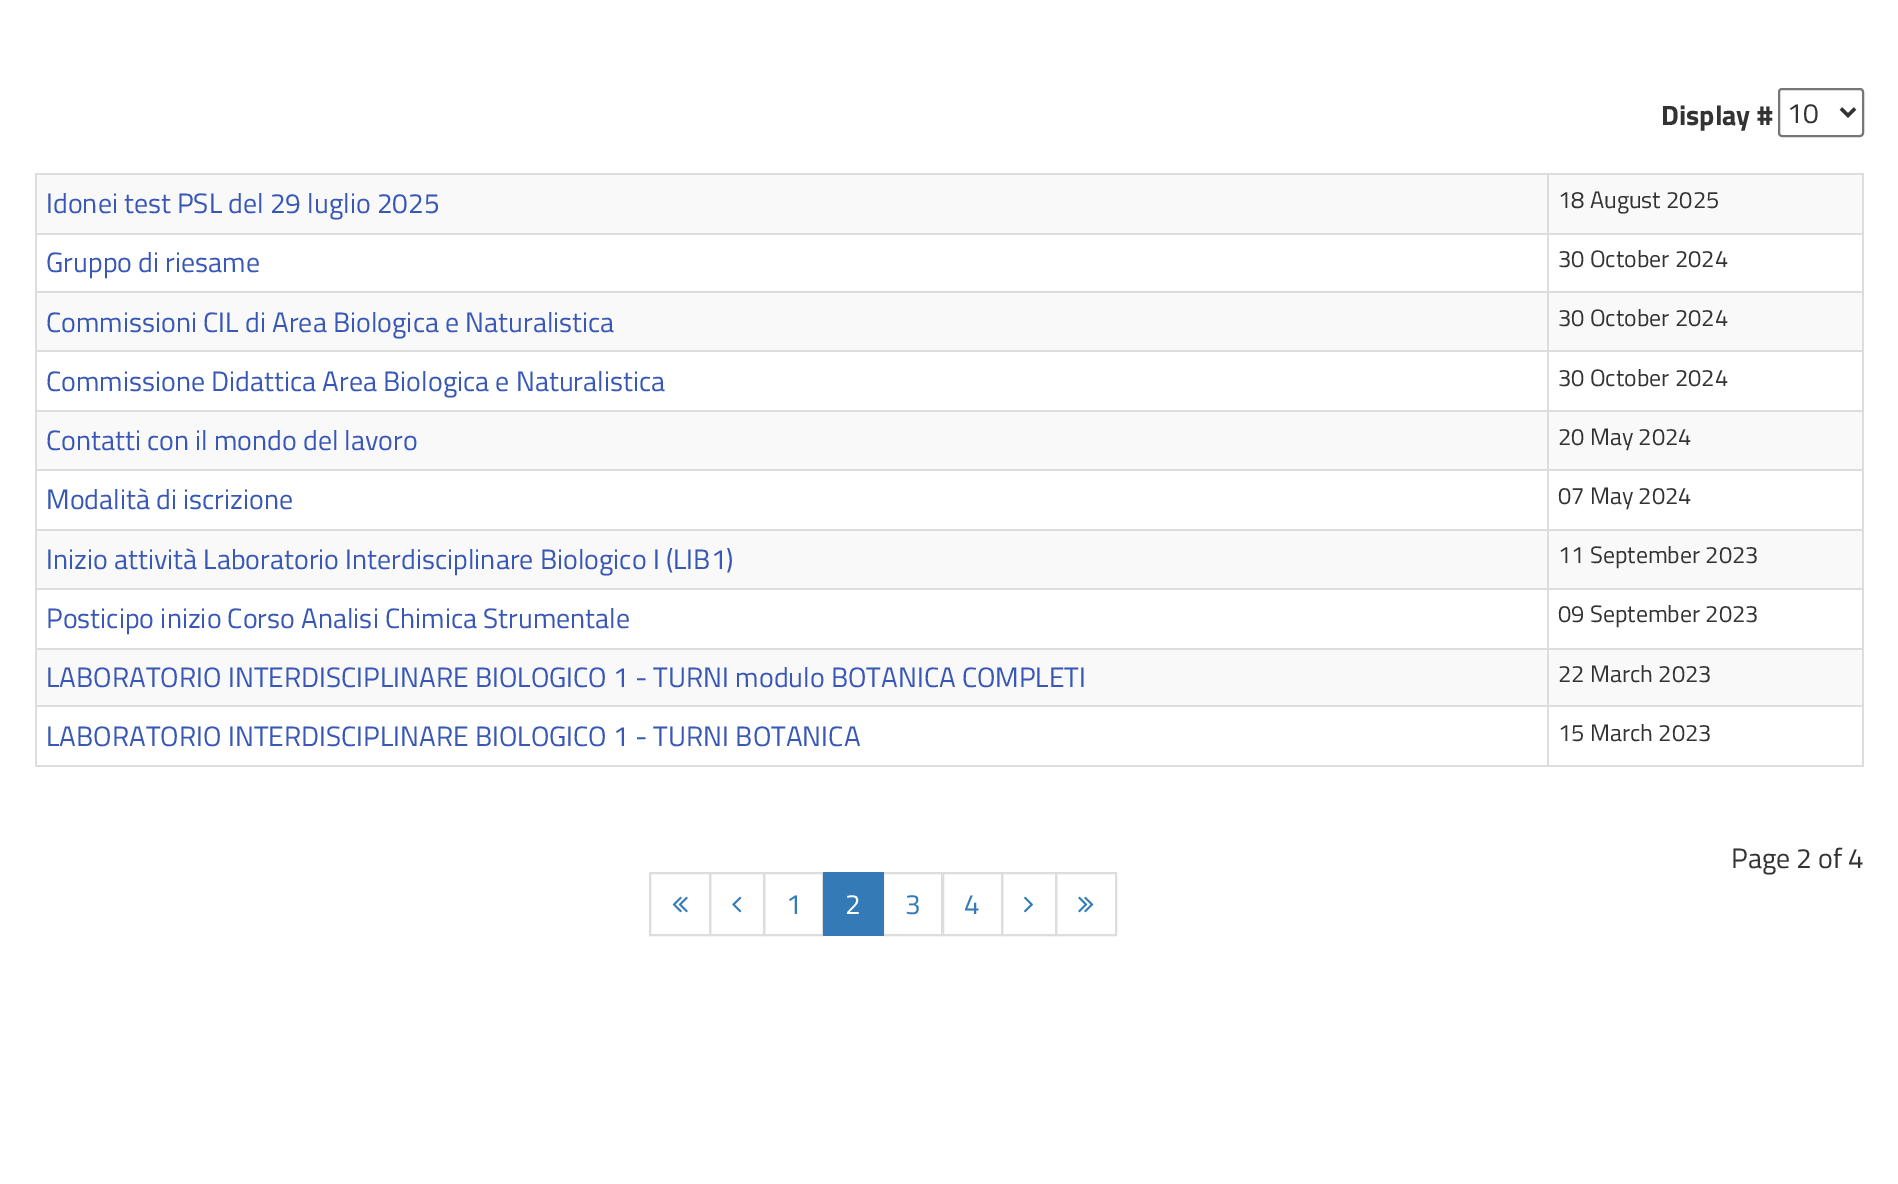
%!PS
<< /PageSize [1898 1184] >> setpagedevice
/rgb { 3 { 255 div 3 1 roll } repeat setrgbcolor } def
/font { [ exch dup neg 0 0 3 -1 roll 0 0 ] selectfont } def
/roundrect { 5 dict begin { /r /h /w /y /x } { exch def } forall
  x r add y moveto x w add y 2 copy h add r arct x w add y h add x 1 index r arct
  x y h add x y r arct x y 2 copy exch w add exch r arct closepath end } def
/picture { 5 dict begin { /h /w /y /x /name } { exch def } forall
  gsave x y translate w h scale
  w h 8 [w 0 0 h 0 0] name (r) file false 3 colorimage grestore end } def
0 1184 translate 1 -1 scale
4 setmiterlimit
255 255 255 rgb
0 0 1898 1184 rectfill
118 118 118 rgb
2 setlinewidth
1779 89 84 47 3 roundrect stroke
51 51 51 rgb
3.5 setlinewidth
1841 108.5 moveto 1848 115.5 lineto 1855 108.5 lineto stroke
[
  [35 173 1829 2 221 221 221]
  [1862 173 2 594 221 221 221]
  [35 765 1829 2 221 221 221]
  [35 173 2 594 221 221 221]
  [37 175 1825 58 249 249 249]
  [1547 233 317 2 221 221 221]
  [1547 291 317 2 221 221 221]
  [37 293 1825 57 249 249 249]
  [1547 350 317 2 221 221 221]
  [1547 410 317 2 221 221 221]
  [37 412 1825 57 249 249 249]
  [1547 469 317 2 221 221 221]
  [1547 529 317 2 221 221 221]
  [37 531 1825 57 249 249 249]
  [1547 588 317 2 221 221 221]
  [1547 648 317 2 221 221 221]
  [37 650 1825 55 249 249 249]
  [1547 705 317 2 221 221 221]
  [1547 705 2 62 221 221 221]
  [35 705 1514 2 221 221 221]
  [1547 648 2 59 221 221 221]
  [35 648 1514 2 221 221 221]
  [1547 588 2 61 221 221 221]
  [35 588 1514 2 221 221 221]
  [1547 529 2 61 221 221 221]
  [35 529 1514 2 221 221 221]
  [1547 469 2 61 221 221 221]
  [35 469 1514 2 221 221 221]
  [1547 410 2 61 221 221 221]
  [35 410 1514 2 221 221 221]
  [1547 350 2 61 221 221 221]
  [35 350 1514 2 221 221 221]
  [1547 291 2 61 221 221 221]
  [35 291 1514 2 221 221 221]
  [1547 233 2 59 221 221 221]
  [35 233 1514 2 221 221 221]
  [1547 173 2 62 221 221 221]
] { aload pop rgb rectfill } forall
2 setlinewidth
650 873 60 62 rectstroke
(img/1.rgb) 672 896 16 17 picture
710 873 54 62 rectstroke
(img/2.rgb) 732 896 10 17 picture
764 873 59 62 rectstroke
883 873 59 62 rectstroke
51 122 183 rgb
823 872 61 64 rectfill
221 221 221 rgb
943 873 59 62 rectstroke
1002 873 54 62 rectstroke
(img/3.rgb) 1024 896 9 17 picture
1056 873 60 62 rectstroke
(img/4.rgb) 1078 896 16 17 picture
/TitilliumWeb-Bold 28 font
51 51 51 rgb
1661 125 moveto (Display #) show
/TitilliumWeb-Regular 28 font
1787 123 moveto (10) show
56 87 182 rgb
46 213 moveto (Idonei test PSL del 29 luglio 2025) show
/TitilliumWeb-Regular 23.75 font
51 51 51 rgb
1558 208 moveto (18 August 2025) show
/TitilliumWeb-Regular 28 font
56 87 182 rgb
46 272 moveto (Gruppo di riesame) show
/TitilliumWeb-Regular 23.75 font
51 51 51 rgb
1558 267 moveto (30 October 2024) show
/TitilliumWeb-Regular 28 font
56 87 182 rgb
46 332 moveto (Commissioni CIL di Area Biologica e Naturalistica) show
/TitilliumWeb-Regular 23.75 font
51 51 51 rgb
1558 326 moveto (30 October 2024) show
/TitilliumWeb-Regular 28 font
56 87 182 rgb
46 391 moveto (Commissione Didattica Area Biologica e Naturalistica) show
/TitilliumWeb-Regular 23.75 font
51 51 51 rgb
1558 386 moveto (30 October 2024) show
/TitilliumWeb-Regular 28 font
56 87 182 rgb
46 450 moveto (Contatti con il mondo del lavoro) show
/TitilliumWeb-Regular 23.75 font
51 51 51 rgb
1558 445 moveto (20 May 2024) show
/TitilliumWeb-Regular 28 font
56 87 182 rgb
46 509 moveto (Modalità di iscrizione) show
/TitilliumWeb-Regular 23.75 font
51 51 51 rgb
1558 504 moveto (07 May 2024) show
/TitilliumWeb-Regular 28 font
56 87 182 rgb
46 569 moveto (Inizio attività Laboratorio Interdisciplinare Biologico I \(LIB1\)) show
/TitilliumWeb-Regular 23.75 font
51 51 51 rgb
1558 563 moveto (11 September 2023) show
/TitilliumWeb-Regular 28 font
56 87 182 rgb
46 628 moveto (Posticipo inizio Corso Analisi Chimica Strumentale) show
/TitilliumWeb-Regular 23.75 font
51 51 51 rgb
1558 622 moveto (09 September 2023) show
/TitilliumWeb-Regular 28 font
56 87 182 rgb
46 687 moveto (LABORATORIO INTERDISCIPLINARE BIOLOGICO 1 - TURNI modulo BOTANICA COMPLETI) show
/TitilliumWeb-Regular 23.75 font
51 51 51 rgb
1558 682 moveto (22 March 2023) show
/TitilliumWeb-Regular 28 font
56 87 182 rgb
46 746 moveto (LABORATORIO INTERDISCIPLINARE BIOLOGICO 1 - TURNI BOTANICA) show
/TitilliumWeb-Regular 23.75 font
51 51 51 rgb
1558 741 moveto (15 March 2023) show
/TitilliumWeb-Regular 28 font
1731 868 moveto (Page 2 of 4) show
51 122 183 rgb
786 914 moveto (1) show
255 255 255 rgb
845 914 moveto (2) show
51 122 183 rgb
905 914 moveto (3) show
964 914 moveto (4) show
showpage
